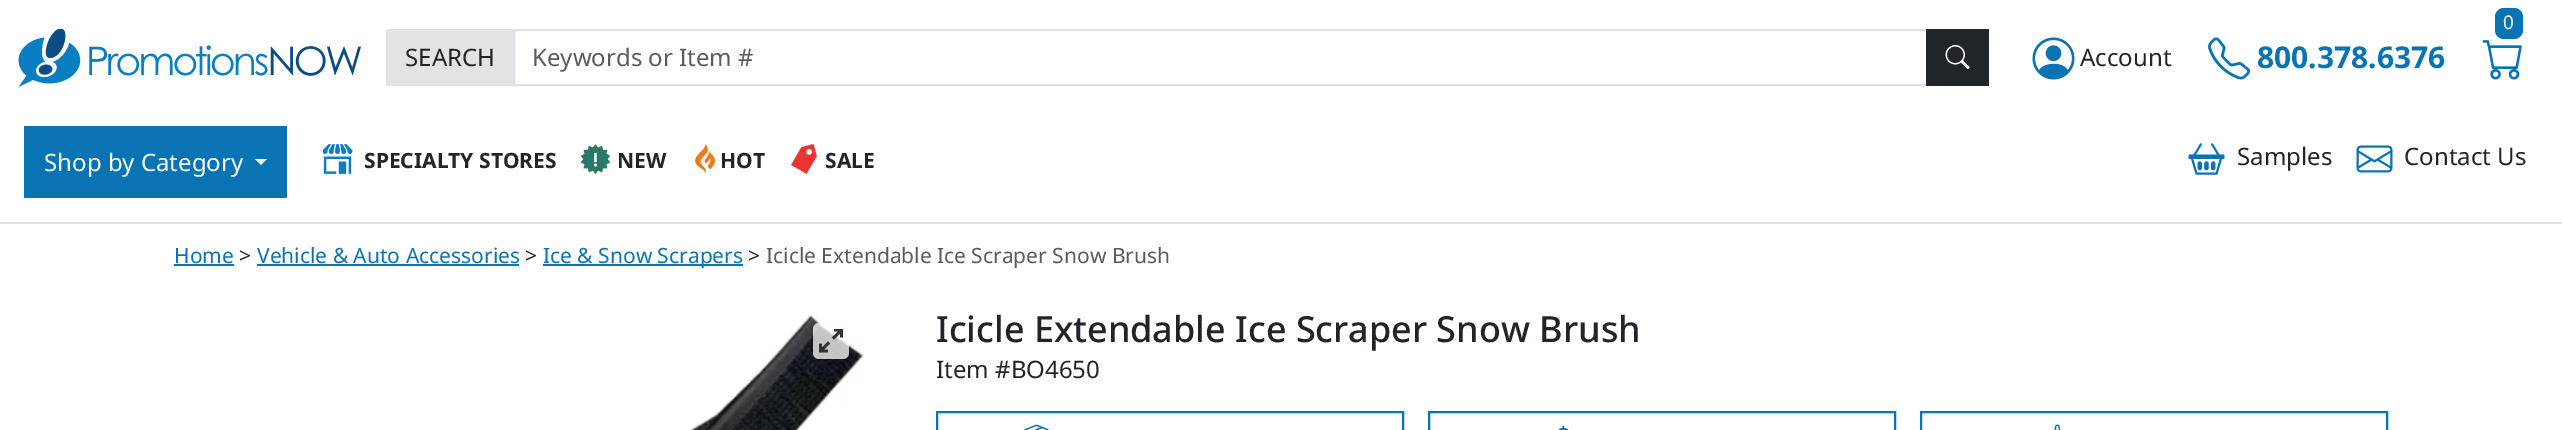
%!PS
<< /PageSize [2562 430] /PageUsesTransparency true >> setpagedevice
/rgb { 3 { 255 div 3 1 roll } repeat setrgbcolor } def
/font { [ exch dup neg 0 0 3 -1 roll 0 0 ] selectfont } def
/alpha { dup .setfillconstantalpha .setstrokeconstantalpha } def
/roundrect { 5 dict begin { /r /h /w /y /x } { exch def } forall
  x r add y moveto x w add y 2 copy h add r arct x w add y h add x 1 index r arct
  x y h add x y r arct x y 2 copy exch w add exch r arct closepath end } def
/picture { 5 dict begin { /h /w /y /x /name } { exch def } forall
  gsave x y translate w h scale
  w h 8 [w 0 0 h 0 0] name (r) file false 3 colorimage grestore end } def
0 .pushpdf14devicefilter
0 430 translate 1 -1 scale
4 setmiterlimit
255 255 255 rgb
0 0 2562 430 rectfill
222 226 230 rgb
0 222 2562 2 rectfill
(img/1.rgb) 18 29 343 58 picture
226 227 229 rgb
387 30 moveto 514 30 lineto 514 85 lineto 387 85 lineto closepath gsave fill grestore
222 226 230 rgb
2 setlinewidth
stroke
514 30 1413 55 rectstroke
33 37 41 rgb
1926 29 63 57 rectfill
(img/2.rgb) 1945 45 25 24 picture
9 116 179 rgb
2495 8 28 31 9 roundrect fill
(img/3.rgb) 2482 40 40 40 picture
(img/4.rgb) 2032 37 43 43 picture
(img/5.rgb) 2208 37 42 43 picture
24 126 263 72 rectfill
255 255 255 rgb
255 159 moveto 267 159 lineto 261 165 lineto closepath fill
(img/6.rgb) 323 144 30 30 picture
(img/7.rgb) 581 144 30 30 picture
(img/8.rgb) 695 144 20 30 picture
(img/9.rgb) 791 144 26 30 picture
(img/10.rgb) 2188 143 37 32 picture
(img/11.rgb) 2356 145 37 28 picture
[
  [174 264 60 2 9 116 179]
  [257 264 262 2 9 116 179]
  [543 264 200 2 9 116 179]
] { aload pop rgb rectfill } forall
(img/12.rgb) 689 315 175 115 picture
0.75 alpha
255 255 255 rgb
813 323 36 36 6 roundrect fill
1 alpha
(img/13.rgb) 819 329 24 24 picture
9 116 179 rgb
937 412 466 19 rectstroke
(img/14.rgb) 1024 424 25 6 picture
1429 412 466 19 rectstroke
(img/15.rgb) 1558 426 11 4 picture
1921 412 466 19 rectstroke
(img/16.rgb) 2054 424 7 6 picture
/NotoSans-Regular 24 font
33 37 41 rgb
405 66 moveto (SEARCH) show
89 92 95 rgb
532 66 moveto (Keywords or Item #) show
/NotoSans-Regular 19 font
255 255 255 rgb
2503 29 moveto (0) show
/NotoSans-Regular 24 font
33 37 41 rgb
2080 66 moveto (Account) show
/NotoSans-Bold 30 font
9 116 179 rgb
2257 68 moveto (800.378.6376) show
/NotoSans-Regular 24 font
255 255 255 rgb
44 171 moveto (Shop by Category) show
/NotoSans-Bold 21 font
33 37 41 rgb
[
  [(SPECIALTY STORES) 364 168]
  [(NEW) 617 168]
  [(HOT) 720 168]
  [(SALE) 825 168]
] { aload pop moveto show } forall
/NotoSans-Regular 24 font
2237 165 moveto (Samples) show
2404 165 moveto (Contact Us) show
/NotoSans-Regular 21 font
9 116 179 rgb
174 263 moveto (Home) show
33 37 41 rgb
239 263 moveto (>) show
9 116 179 rgb
257 263 moveto (Vehicle & Auto Accessories) show
33 37 41 rgb
525 263 moveto (>) show
9 116 179 rgb
543 263 moveto (Ice & Snow Scrapers) show
33 37 41 rgb
748 263 moveto (>) show
89 92 95 rgb
766 263 moveto (Icicle Extendable Ice Scraper Snow Brush) show
/NotoSans-Medium 36 font
33 37 41 rgb
936 342 moveto (Icicle Extendable Ice Scraper Snow Brush) show
/NotoSans-Regular 24 font
936 378 moveto (Item #BO4650) show
.poppdf14devicefilter showpage
